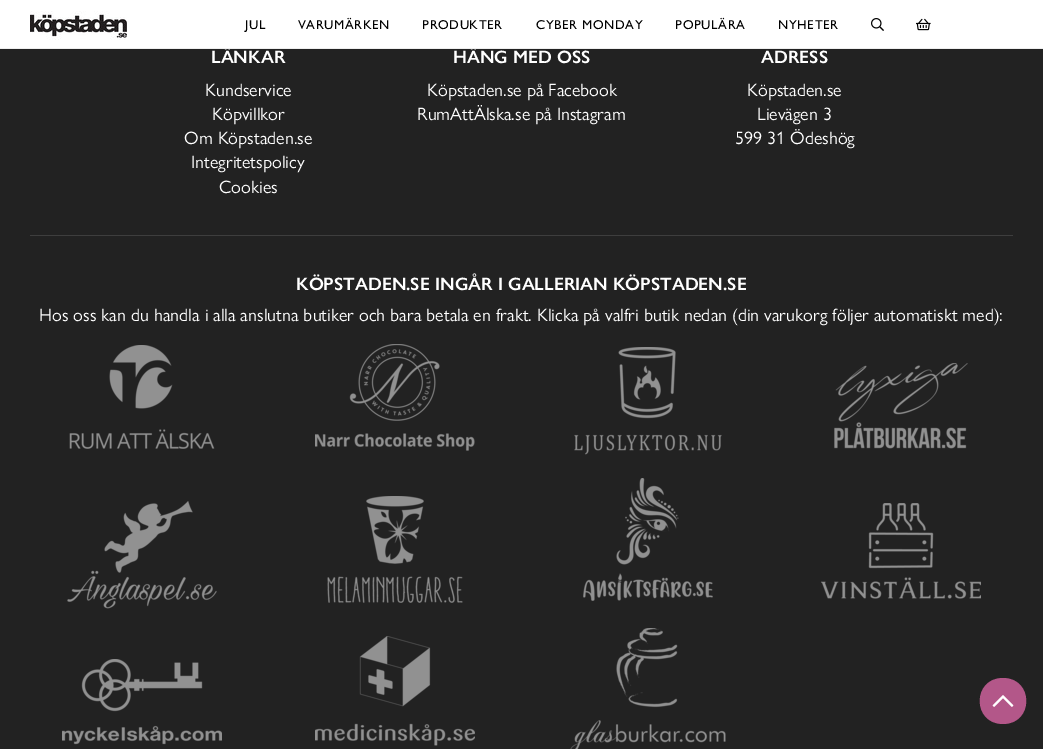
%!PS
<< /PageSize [1043 749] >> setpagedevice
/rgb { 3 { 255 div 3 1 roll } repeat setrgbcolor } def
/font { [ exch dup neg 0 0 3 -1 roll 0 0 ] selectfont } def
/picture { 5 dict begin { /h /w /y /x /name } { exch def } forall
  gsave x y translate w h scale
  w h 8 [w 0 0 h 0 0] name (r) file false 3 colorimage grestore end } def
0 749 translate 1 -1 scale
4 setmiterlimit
34 34 34 rgb
0 0 1043 749 rectfill
255 255 255 rgb
0 0 1043 48 rectfill
(img/1.rgb) 30 11 97 29 picture
(img/2.rgb) 871 18 13 13 picture
(img/3.rgb) 916 18 15 13 picture
62 62 62 rgb
30 235 983 1 rectfill
(img/4.rgb) 69 345 146 104 picture
(img/5.rgb) 315 344 160 107 picture
(img/6.rgb) 574 347 148 108 picture
(img/7.rgb) 834 363 134 86 picture
(img/8.rgb) 67 501 150 108 picture
(img/9.rgb) 327 496 136 107 picture
(img/10.rgb) 583 478 130 123 picture
(img/11.rgb) 821 503 160 96 picture
(img/12.rgb) 62 659 160 86 picture
(img/13.rgb) 315 636 160 110 picture
(img/14.rgb) 570 628 156 121 picture
179 87 137 rgb
1003 678 moveto 972 678 972 724 1003 724 curveto 1034 724 1034 678 1003 678 curveto closepath fill
(img/15.rgb) 992 695 22 12 picture
/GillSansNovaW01-Medium 13 font
0 0 0 rgb
245 29 moveto 0.6 0 (JUL) ashow
298 29 moveto 0.6 0 (VARUMÄRKEN) ashow
422 29 moveto 0.6 0 (PRODUKTER) ashow
536 29 moveto 0.6 0 (CYBER MONDAY) ashow
675 29 moveto 0.6 0 (POPULÄRA) ashow
778 29 moveto 0.6 0 (NYHETER) ashow
/GillSansNovaW01-SemiBold 18 font
255 255 255 rgb
211 63 moveto (LÄNKAR) show
/GillSansNovaW01-Regular 18 font
[
  [(Kundservice) 205 96]
  [(Köpvillkor) 212 120]
  [(Om Köpstaden.se) 184 144]
  [(Integritetspolicy) 191 168]
  [(Cookies) 219 193]
] { aload pop moveto show } forall
/GillSansNovaW01-SemiBold 18 font
453 63 moveto (HÄNG MED OSS) show
238 238 238 rgb
0 48 1043 1 rectfill
/GillSansNovaW01-Regular 18 font
255 255 255 rgb
427 96 moveto (Köpstaden.se på Facebook) show
417 120 moveto (RumAttÄlska.se på Instagram) show
/GillSansNovaW01-SemiBold 18 font
761 63 moveto (ADRESS) show
/GillSansNovaW01-Regular 18 font
[
  [(Köpstaden.se) 747 96]
  [(Lievägen 3) 757 120]
  [(599 31 Ödeshög) 735 144]
] { aload pop moveto show } forall
/GillSansNovaW01-SemiBold 18 font
296 290 moveto (KÖPSTADEN.SE INGÅR I GALLERIAN KÖPSTADEN.SE) show
/GillSansNovaW01-Regular 18 font
39 321 moveto (Hos oss kan du handla i alla anslutna butiker och bara betala en frakt. Klicka på valfri butik nedan \(din varukorg följer automatiskt med\):) show
showpage
